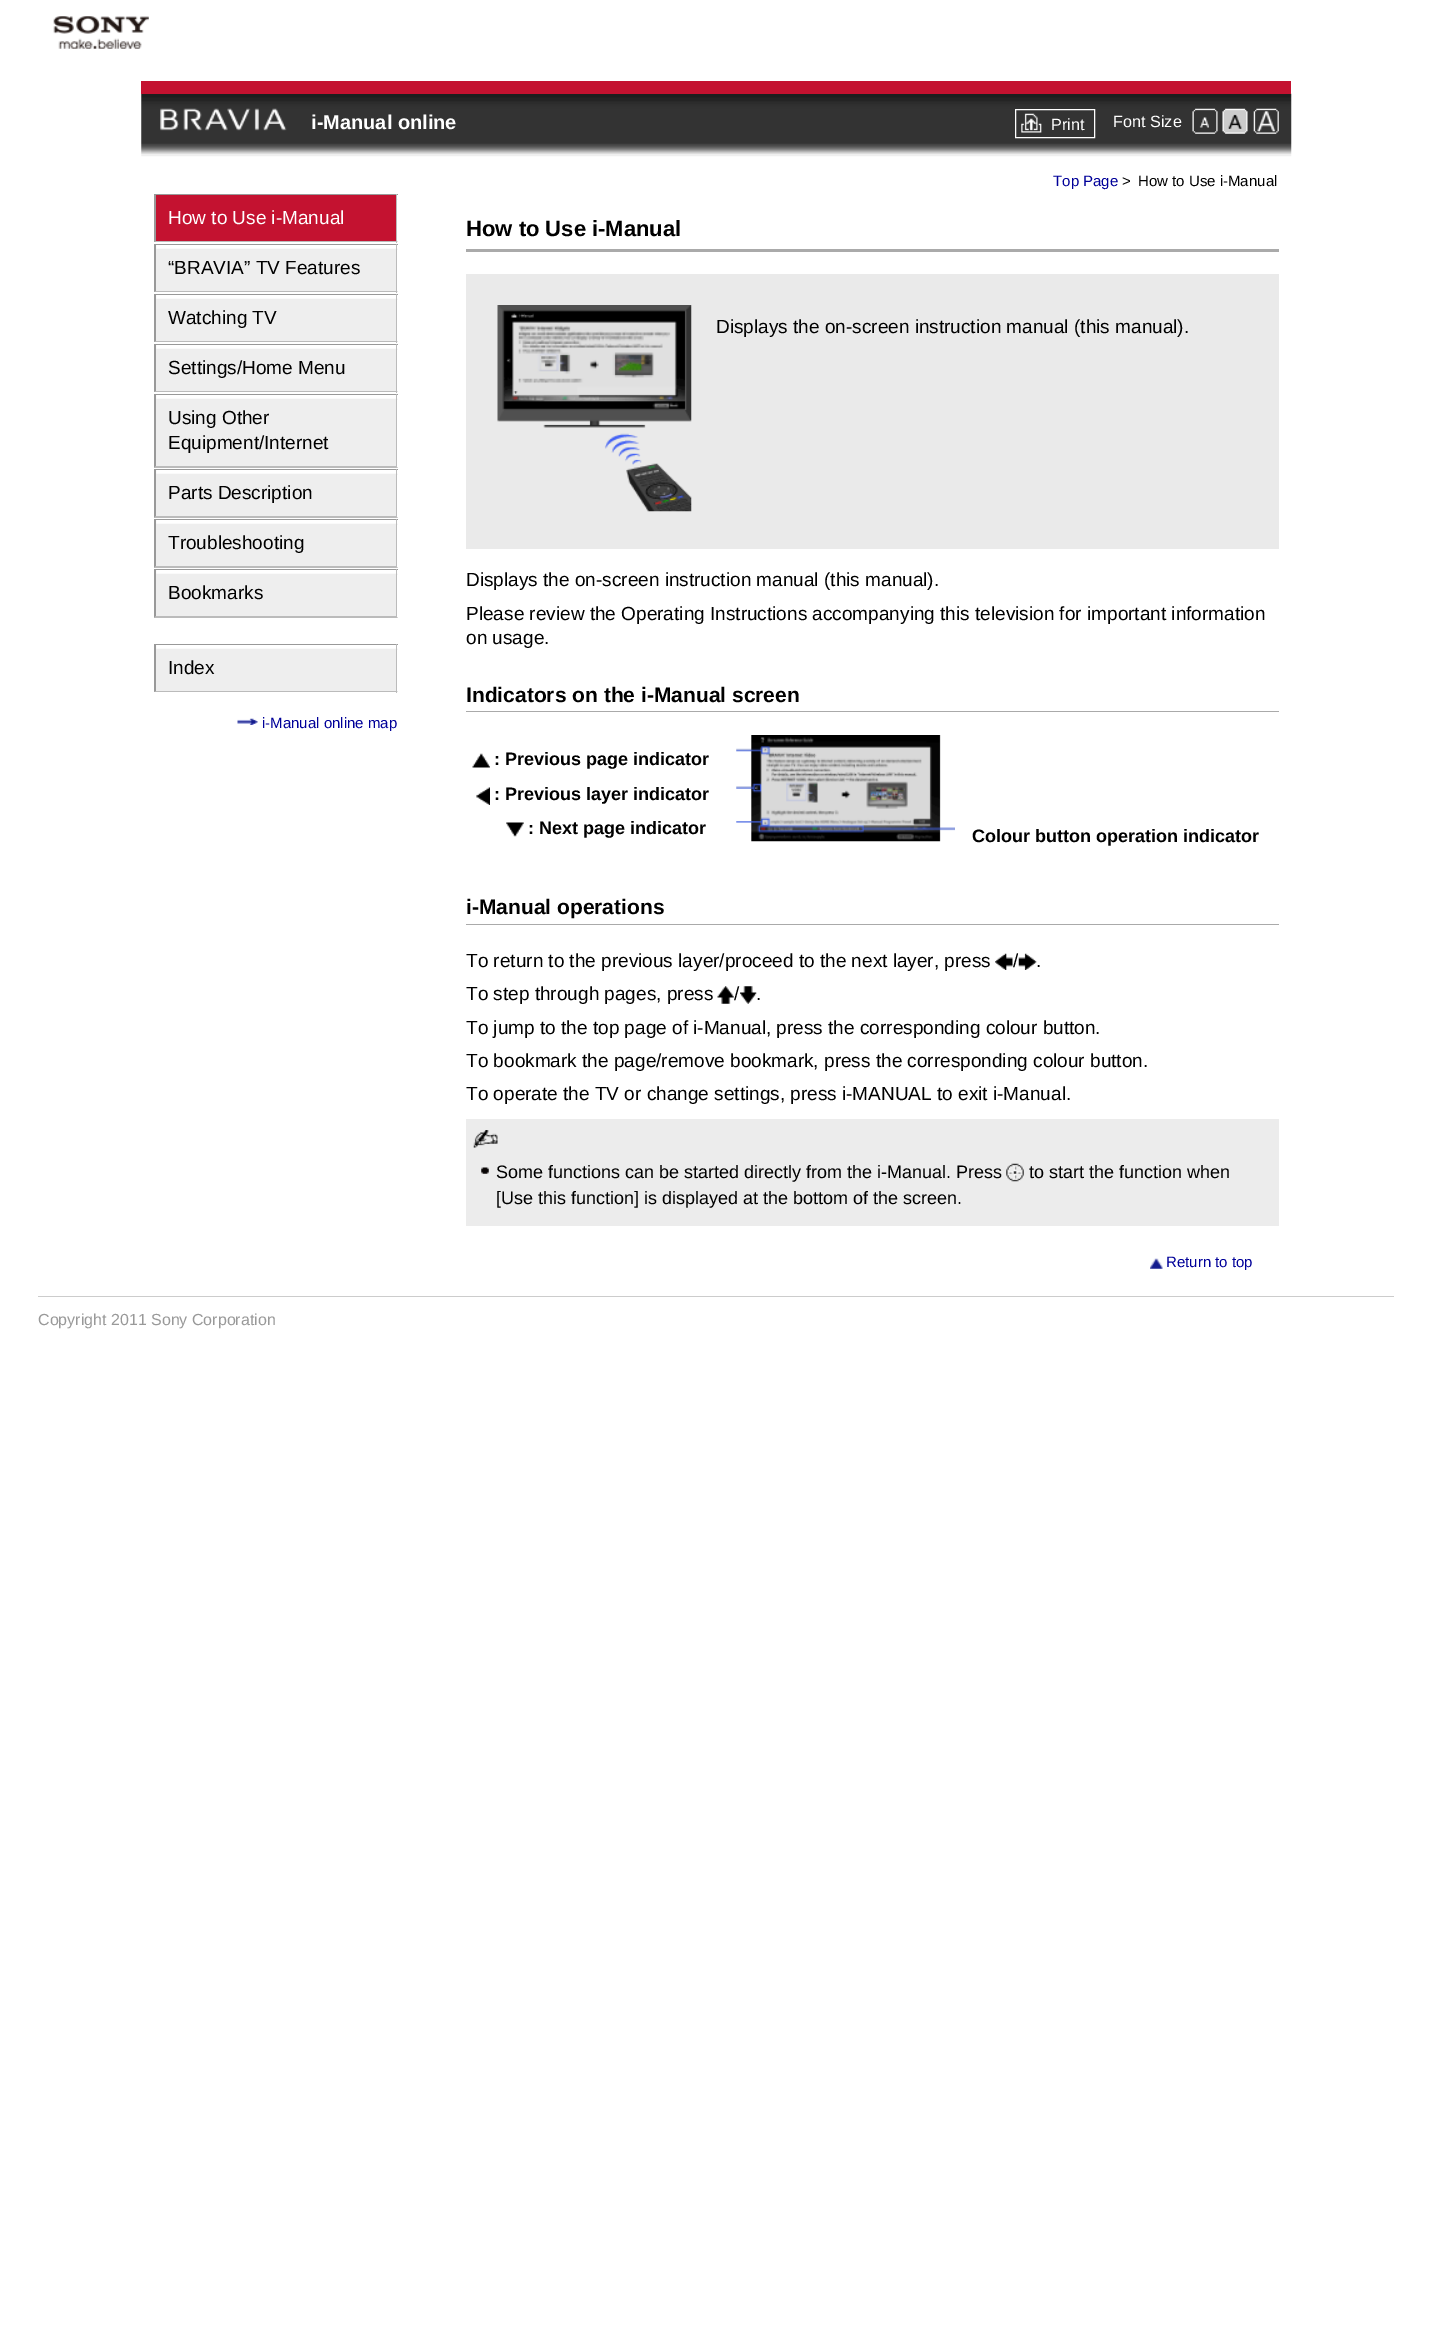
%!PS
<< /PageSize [1431 2343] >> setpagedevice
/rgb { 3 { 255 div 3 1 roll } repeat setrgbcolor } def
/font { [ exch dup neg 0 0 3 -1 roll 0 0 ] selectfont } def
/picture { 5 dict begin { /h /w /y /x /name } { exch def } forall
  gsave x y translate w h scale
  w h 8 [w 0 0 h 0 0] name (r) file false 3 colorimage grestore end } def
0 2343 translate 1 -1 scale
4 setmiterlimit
255 255 255 rgb
0 0 1431 2343 rectfill
(img/1.rgb) 53 16 96 33 picture
(img/2.rgb) 141 93 1151 64 picture
196 18 48 rgb
141 81 1150 13 rectfill
(img/3.rgb) 160 108 127 23 picture
(img/4.rgb) 1021 113 21 20 picture
255 255 255 rgb
1015.5 109.5 79 28 rectstroke
(img/5.rgb) 1192 108 26 26 picture
(img/6.rgb) 1222 108 26 26 picture
(img/7.rgb) 1253 108 26 26 picture
(img/8.rgb) 397 195 1 5 picture
153 153 153 rgb
154 194 244 1 rectfill
187 187 187 rgb
396 194 1 49 rectfill
398 242 moveto 154 242 lineto 156 241 lineto 396 241 lineto closepath fill
153 153 153 rgb
154 242 moveto 154 194 lineto 156 195 lineto 156 241 lineto closepath fill
196 18 48 rgb
156 195 240 46 rectfill
238 238 238 rgb
156 245 240 46 rectfill
(img/9.rgb) 156 245 242 5 picture
153 153 153 rgb
154 244 244 1 rectfill
187 187 187 rgb
396 244 1 49 rectfill
398 292 moveto 154 292 lineto 156 291 lineto 396 291 lineto closepath fill
153 153 153 rgb
154 292 moveto 154 244 lineto 156 245 lineto 156 291 lineto closepath fill
238 238 238 rgb
156 295 240 46 rectfill
(img/9.rgb) 156 295 242 5 picture
153 153 153 rgb
154 294 244 1 rectfill
187 187 187 rgb
396 294 1 49 rectfill
398 342 moveto 154 342 lineto 156 341 lineto 396 341 lineto closepath fill
153 153 153 rgb
154 342 moveto 154 294 lineto 156 295 lineto 156 341 lineto closepath fill
238 238 238 rgb
156 345 240 46 rectfill
(img/9.rgb) 156 345 242 5 picture
153 153 153 rgb
154 344 244 1 rectfill
187 187 187 rgb
396 344 1 49 rectfill
398 392 moveto 154 392 lineto 156 391 lineto 396 391 lineto closepath fill
153 153 153 rgb
154 392 moveto 154 344 lineto 156 345 lineto 156 391 lineto closepath fill
238 238 238 rgb
156 395 240 71 rectfill
(img/9.rgb) 156 395 242 5 picture
153 153 153 rgb
154 394 244 1 rectfill
187 187 187 rgb
396 394 1 74 rectfill
398 468 moveto 154 468 lineto 156 466 lineto 396 466 lineto closepath fill
153 153 153 rgb
154 468 moveto 154 394 lineto 156 395 lineto 156 466 lineto closepath fill
238 238 238 rgb
156 470 240 46 rectfill
(img/9.rgb) 156 470 242 5 picture
153 153 153 rgb
154 469 244 1 rectfill
187 187 187 rgb
396 469 1 49 rectfill
398 518 moveto 154 518 lineto 156 516 lineto 396 516 lineto closepath fill
153 153 153 rgb
154 518 moveto 154 469 lineto 156 470 lineto 156 516 lineto closepath fill
238 238 238 rgb
156 520 240 46 rectfill
(img/9.rgb) 156 520 242 5 picture
153 153 153 rgb
154 519 244 1 rectfill
187 187 187 rgb
396 519 1 49 rectfill
398 568 moveto 154 568 lineto 156 566 lineto 396 566 lineto closepath fill
153 153 153 rgb
154 568 moveto 154 519 lineto 156 520 lineto 156 566 lineto closepath fill
238 238 238 rgb
156 570 240 46 rectfill
(img/9.rgb) 156 570 242 5 picture
153 153 153 rgb
154 569 244 1 rectfill
187 187 187 rgb
396 569 1 49 rectfill
398 618 moveto 154 618 lineto 156 616 lineto 396 616 lineto closepath fill
153 153 153 rgb
154 618 moveto 154 569 lineto 156 570 lineto 156 616 lineto closepath fill
238 238 238 rgb
156 645 240 46 rectfill
(img/9.rgb) 156 645 242 5 picture
153 153 153 rgb
154 644 244 1 rectfill
187 187 187 rgb
396 644 1 49 rectfill
398 692 moveto 154 692 lineto 156 691 lineto 396 691 lineto closepath fill
153 153 153 rgb
154 692 moveto 154 644 lineto 156 645 lineto 156 691 lineto closepath fill
(img/10.rgb) 237 718 21 7 picture
170 170 170 rgb
466 249 813 3 rectfill
234 234 234 rgb
466 274 813 275 rectfill
(img/11.rgb) 497 305 195 207 picture
170 170 170 rgb
466 711 813 1 rectfill
(img/12.rgb) 472 753 18 15 picture
(img/13.rgb) 736 735 219 107 picture
(img/14.rgb) 476 787 14 18 picture
(img/15.rgb) 506 822 18 15 picture
466 924 813 1 rectfill
(img/16.rgb) 995 953 18 17 picture
(img/18.rgb) 717 986 17 18 picture
(img/19.rgb) 740 986 17 18 picture
236 236 236 rgb
466 1119 813 107 rectfill
(img/20.rgb) 473 1130 25 18 picture
(img/21.rgb) 481 1167 8 7 picture
(img/22.rgb) 1006 1163 18 19 picture
(img/23.rgb) 1150 1258 13 11 picture
204 204 204 rgb
38 1296 1356 1 rectfill
/LiberationSans-Bold 20 font
255 255 255 rgb
311 129 moveto (i-Manual online) show
/LiberationSans-Regular 16.25 font
1051 130 moveto (Print) show
1113 127 moveto (Font Size) show
/LiberationSans-Regular 19 font
168 224 moveto (How to Use i-Manual) show
0 0 0 rgb
[
  [(“BRAVIA” TV Features) 168 274]
  [(Watching TV) 168 324]
  [(Settings/Home Menu) 168 374]
  [(Using Other) 168 424]
  [(Equipment/Internet) 168 449]
  [(Parts Description) 168 499]
  [(Troubleshooting) 168 549]
  [(Bookmarks) 168 599]
  [(Index) 168 674]
] { aload pop moveto show } forall
/LiberationSans-Regular 15 font
0 0 153 rgb
262 728 moveto (i-Manual online map) show
1053 186 moveto (Top Page) show
0 0 0 rgb
1122 186 moveto (>) show
1138 186 moveto (How to Use i-Manual) show
/LiberationSans-Bold 22 font
466 236 moveto (How to Use i-Manual) show
/LiberationSans-Regular 19 font
[
  [(Displays the on-screen instruction manual \(this manual\).) 716 333]
  [(Displays the on-screen instruction manual \(this manual\).) 466 586]
  [(Please review the Operating Instructions accompanying this television for important information) 466 620]
  [(on usage.) 466 644]
] { aload pop moveto show } forall
/LiberationSans-Bold 21 font
466 702 moveto (Indicators on the i-Manual screen) show
/LiberationSans-Bold 18 font
[
  [(: Previous page indicator) 494 765]
  [(: Previous layer indicator) 494 800]
  [(: Next page indicator) 528 834]
  [(Colour button operation indicator) 972 842]
] { aload pop moveto show } forall
/LiberationSans-Bold 21 font
466 914 moveto (i-Manual operations) show
/LiberationSans-Regular 19 font
466 967 moveto (To return to the previous layer/proceed to the next layer, press) show
1013 967 moveto (/) show
(img/17.rgb) 1018 953 19 17 picture
[
  [(.) 1036 967]
  [(To step through pages, press) 466 1000]
  [(/) 734 1000]
  [(.) 756 1000]
  [(To jump to the top page of i-Manual, press the corresponding colour button.) 466 1034]
  [(To bookmark the page/remove bookmark, press the corresponding colour button.) 466 1067]
  [(To operate the TV or change settings, press i-MANUAL to exit i-Manual.) 466 1100]
] { aload pop moveto show } forall
/LiberationSans-Regular 18 font
[
  [(Some functions can be started directly from the i-Manual. Press) 496 1178]
  [(to start the function when) 1029 1178]
  [([Use this function] is displayed at the bottom of the screen.) 496 1204]
] { aload pop moveto show } forall
/LiberationSans-Regular 15 font
0 0 153 rgb
1166 1267 moveto (Return to top) show
/LiberationSans-Regular 16 font
153 153 153 rgb
38 1325 moveto (Copyright 2011 Sony Corporation) show
showpage
